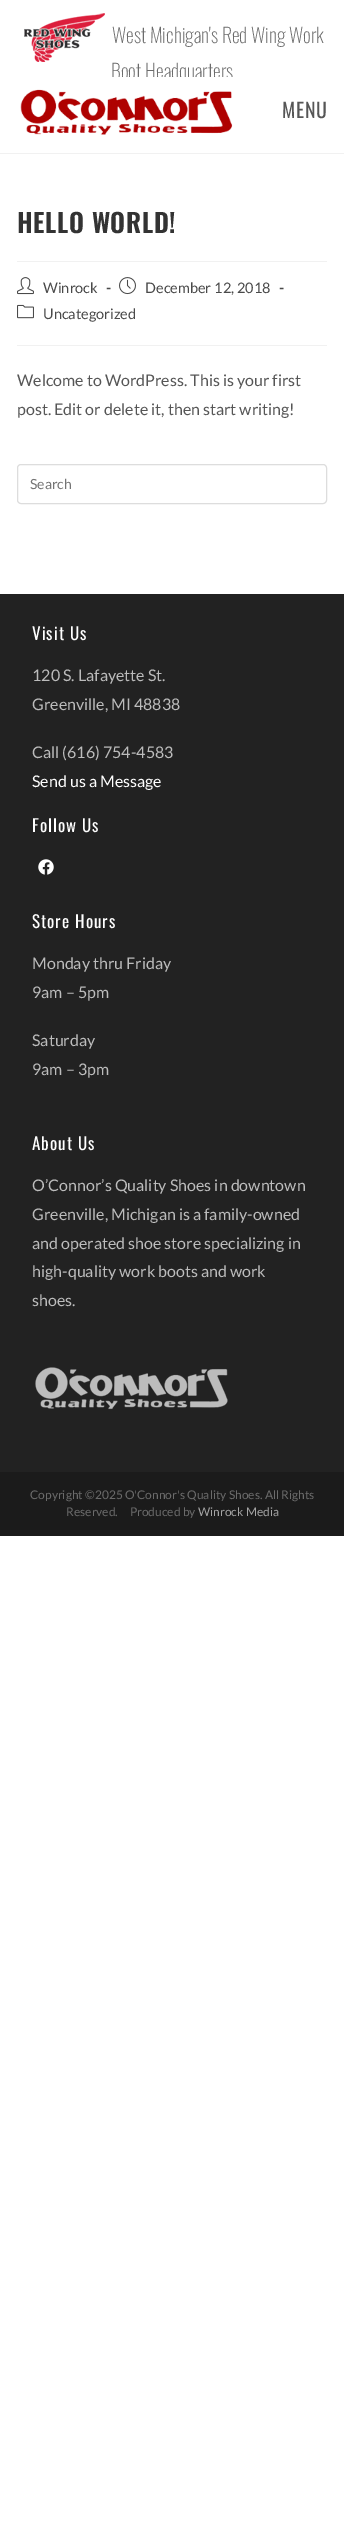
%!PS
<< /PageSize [344 2534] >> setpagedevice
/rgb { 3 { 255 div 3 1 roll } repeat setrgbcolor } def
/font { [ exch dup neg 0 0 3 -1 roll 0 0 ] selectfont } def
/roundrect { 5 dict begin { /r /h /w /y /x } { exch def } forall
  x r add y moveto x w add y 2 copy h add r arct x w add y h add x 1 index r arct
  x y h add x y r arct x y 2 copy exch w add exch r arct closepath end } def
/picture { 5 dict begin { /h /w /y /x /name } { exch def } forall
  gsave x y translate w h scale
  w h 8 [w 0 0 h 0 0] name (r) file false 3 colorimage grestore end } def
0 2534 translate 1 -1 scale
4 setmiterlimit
255 255 255 rgb
0 0 344 2534 rectfill
(img/1.rgb) 24 13 81 49 picture
241 241 241 rgb
0 153 344 1 rectfill
(img/2.rgb) 20 89 213 46 picture
17 261 310 1 rectfill
17 345 310 1 rectfill
(img/3.rgb) 17 277 17 18 picture
(img/4.rgb) 119 277 17 18 picture
(img/5.rgb) 17 304 17 15 picture
221 221 221 rgb
17.5 464.5 309 39 3.5 roundrect stroke
34 34 34 rgb
0 594 344 878 rectfill
(img/6.rgb) 38 859 16 16 picture
(img/7.rgb) 35 1367 193 43 picture
27 27 27 rgb
0 1472 344 64 rectfill
/Oswald-ExtraLight 20 font
107 107 107 rgb
112 43 moveto (West Michigan's Red Wing Work) show
111 79 moveto (Boot Headquarters) show
255 255 255 rgb
112 77 121 6 rectfill
/Oswald-Regular 20 font
86 86 86 rgb
282 118 moveto 0.6 0 (MENU) ashow
/Oswald-SemiBold 26 font
51 51 51 rgb
17 233 moveto 0.6 0 (HELLO WORLD!) ashow
/Lato-Regular 14.5 font
74 74 74 rgb
43 293 moveto (Winrock) show
/Lato-Bold 14.5 font
106 293 moveto (-) show
/Lato-Regular 14.5 font
145 293 moveto (December 12, 2018) show
/Lato-Bold 14.5 font
279 293 moveto (-) show
/Lato-Regular 14.5 font
43 319 moveto (Uncategorized) show
/Lato-Regular 16 font
86 86 86 rgb
17 386 moveto (Welcome to WordPress. This is your first) show
17 415 moveto (post. Edit or delete it, then start writing!) show
/Lato-Regular 14 font
117 117 117 rgb
30 489 moveto (Search) show
/Oswald-Regular 17 font
255 255 255 rgb
32 640 moveto 1 0 (Visit Us) ashow
/Lato-Regular 16 font
188 188 188 rgb
[
  [(120 S. Lafayette St.) 32 681]
  [(Greenville, MI 48838) 32 710]
  [(Call \(616\) 754-4583) 32 758]
] { aload pop moveto show } forall
255 255 255 rgb
32 787 moveto (Send us a Message) show
/Oswald-Regular 17 font
32 832 moveto 1 0 (Follow Us) ashow
32 928 moveto 1 0 (Store Hours) ashow
/Lato-Regular 16 font
188 188 188 rgb
[
  [(Monday thru Friday) 32 969]
  [(9am – 5pm) 32 998]
  [(Saturday) 32 1046]
  [(9am – 3pm) 32 1075]
] { aload pop moveto show } forall
/Oswald-Regular 17 font
255 255 255 rgb
32 1150 moveto 1 0 (About Us) ashow
/Lato-Regular 16 font
188 188 188 rgb
[
  [(O’Connor’s Quality Shoes in downtown) 32 1191]
  [(Greenville, Michigan is a family-owned) 32 1220]
  [(and operated shoe store specializing in) 32 1249]
  [(high-quality work boots and work) 32 1277]
  [(shoes.) 32 1306]
] { aload pop moveto show } forall
/Lato-Regular 12 font
107 107 107 rgb
30 1499 moveto (Copyright ©2025 O'Connor's Quality Shoes. All Rights) show
66 1516 moveto (Reserved.     Produced by) show
165 165 165 rgb
198 1516 moveto (Winrock Media) show
showpage
